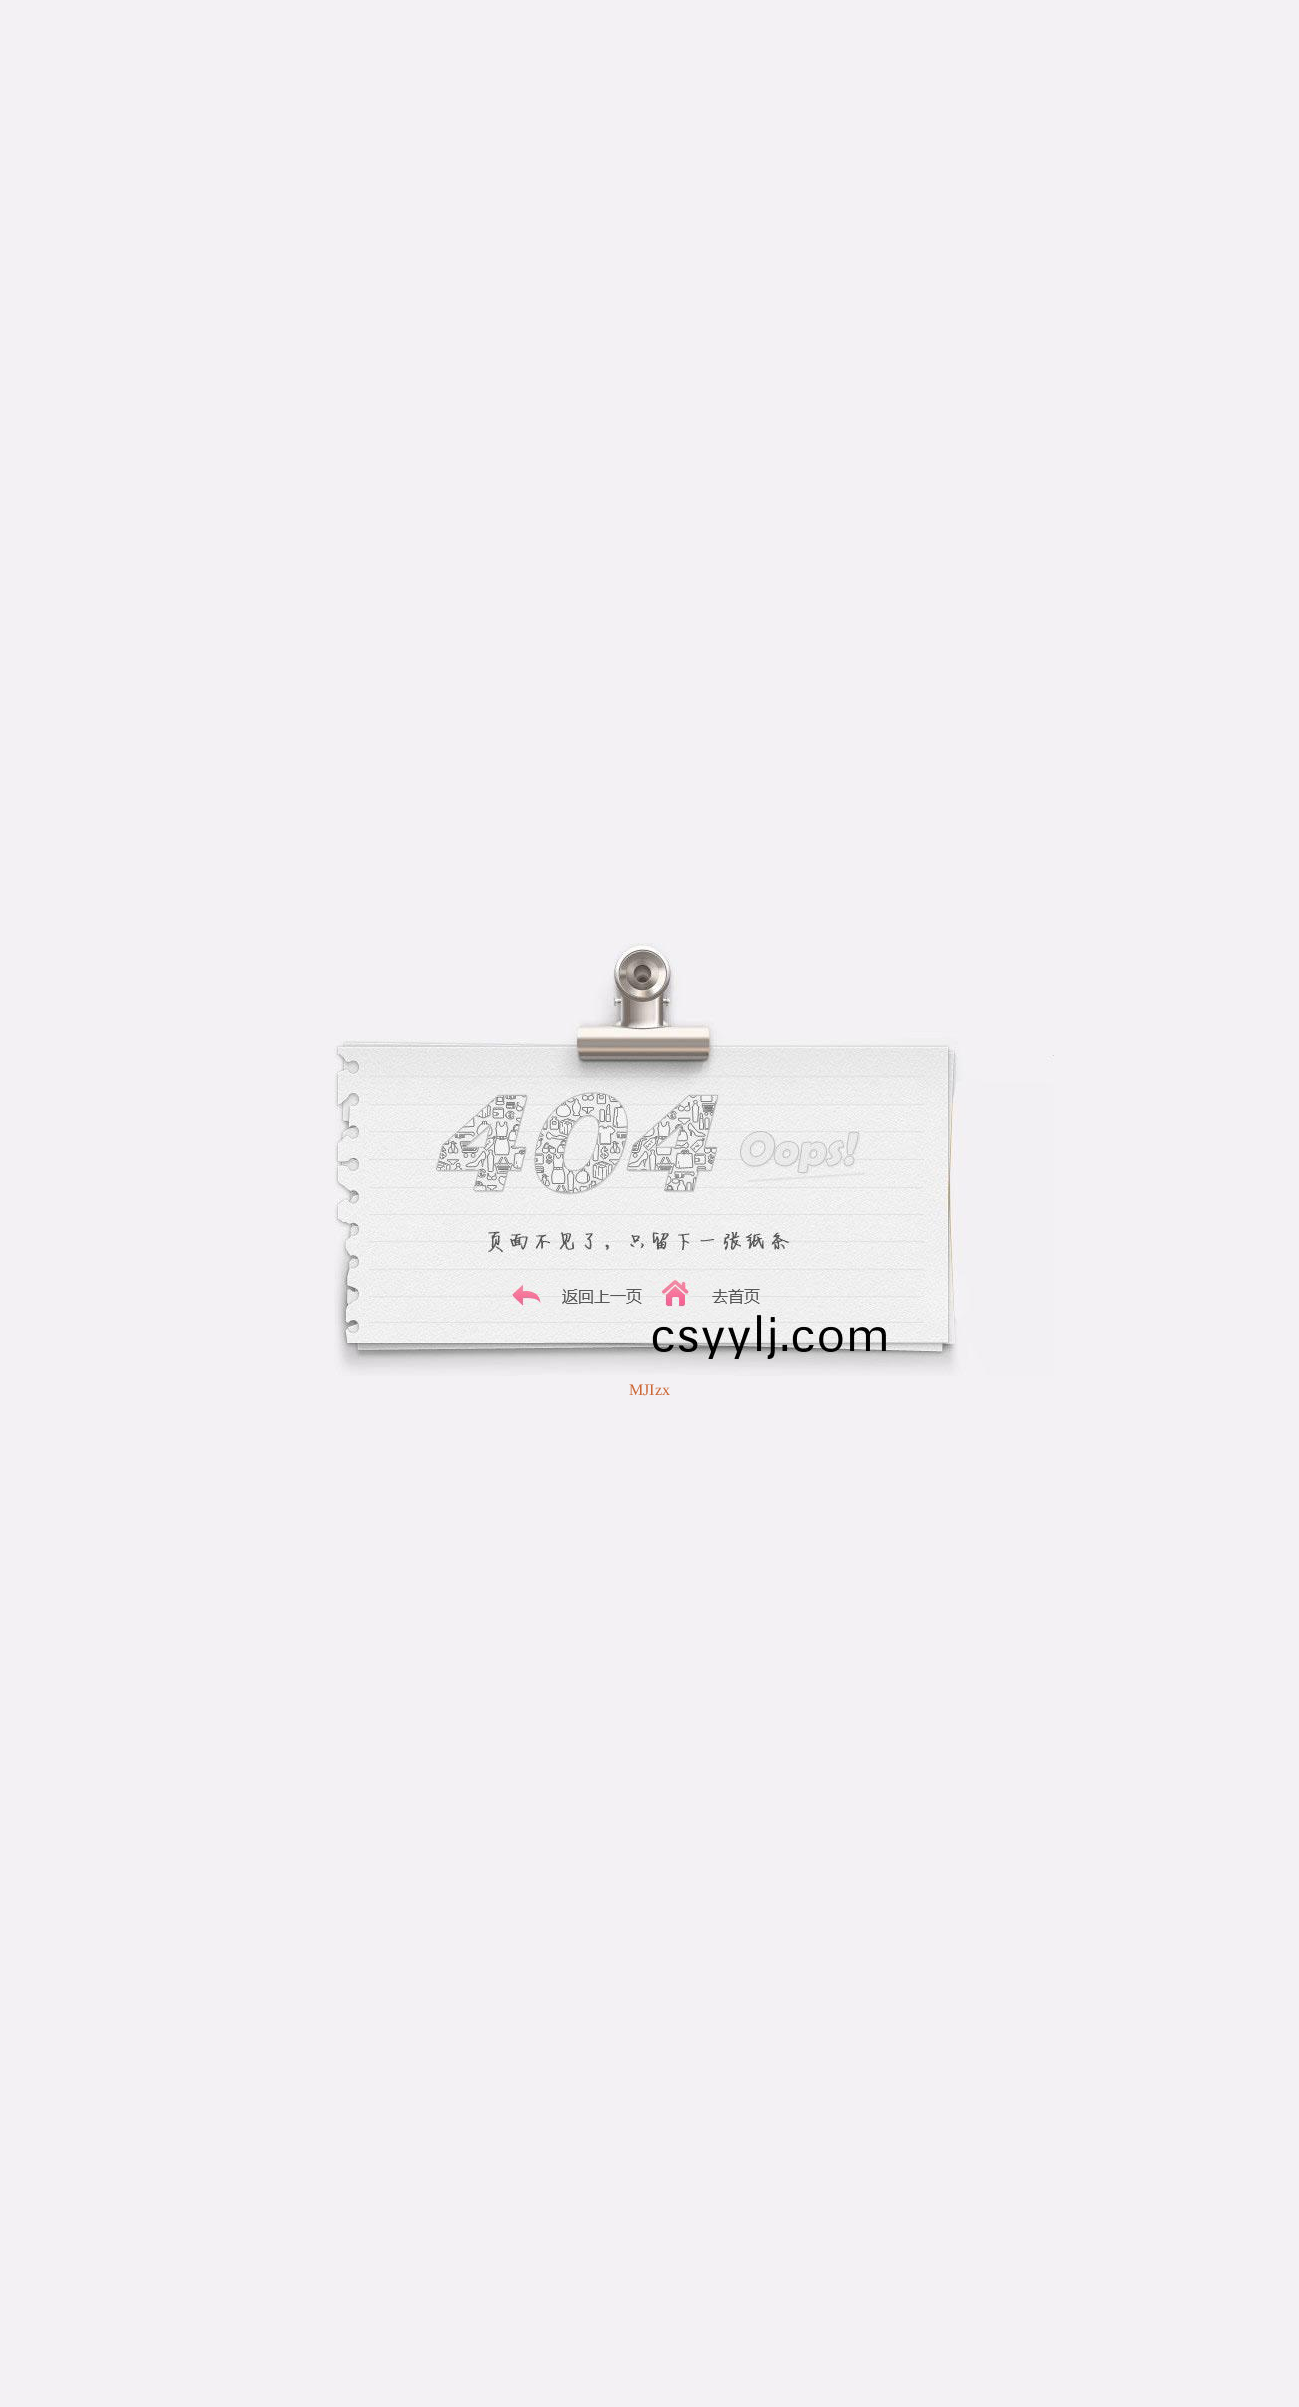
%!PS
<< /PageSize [1299 2407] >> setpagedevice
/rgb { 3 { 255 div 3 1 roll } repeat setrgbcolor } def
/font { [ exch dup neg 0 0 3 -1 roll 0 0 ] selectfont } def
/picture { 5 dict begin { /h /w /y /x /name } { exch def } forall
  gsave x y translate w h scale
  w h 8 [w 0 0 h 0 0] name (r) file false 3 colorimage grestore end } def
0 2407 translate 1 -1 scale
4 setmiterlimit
243 241 244 rgb
0 0 1299 2407 rectfill
(img/1.rgb) 334 943 720 433 picture
(img/2.rgb) 509 1278 139 34 picture
(img/3.rgb) 652 1278 139 34 picture
/LiberationSerif-Regular 16 font
204 102 51 rgb
629 1395 moveto (MJIzx) show
showpage
